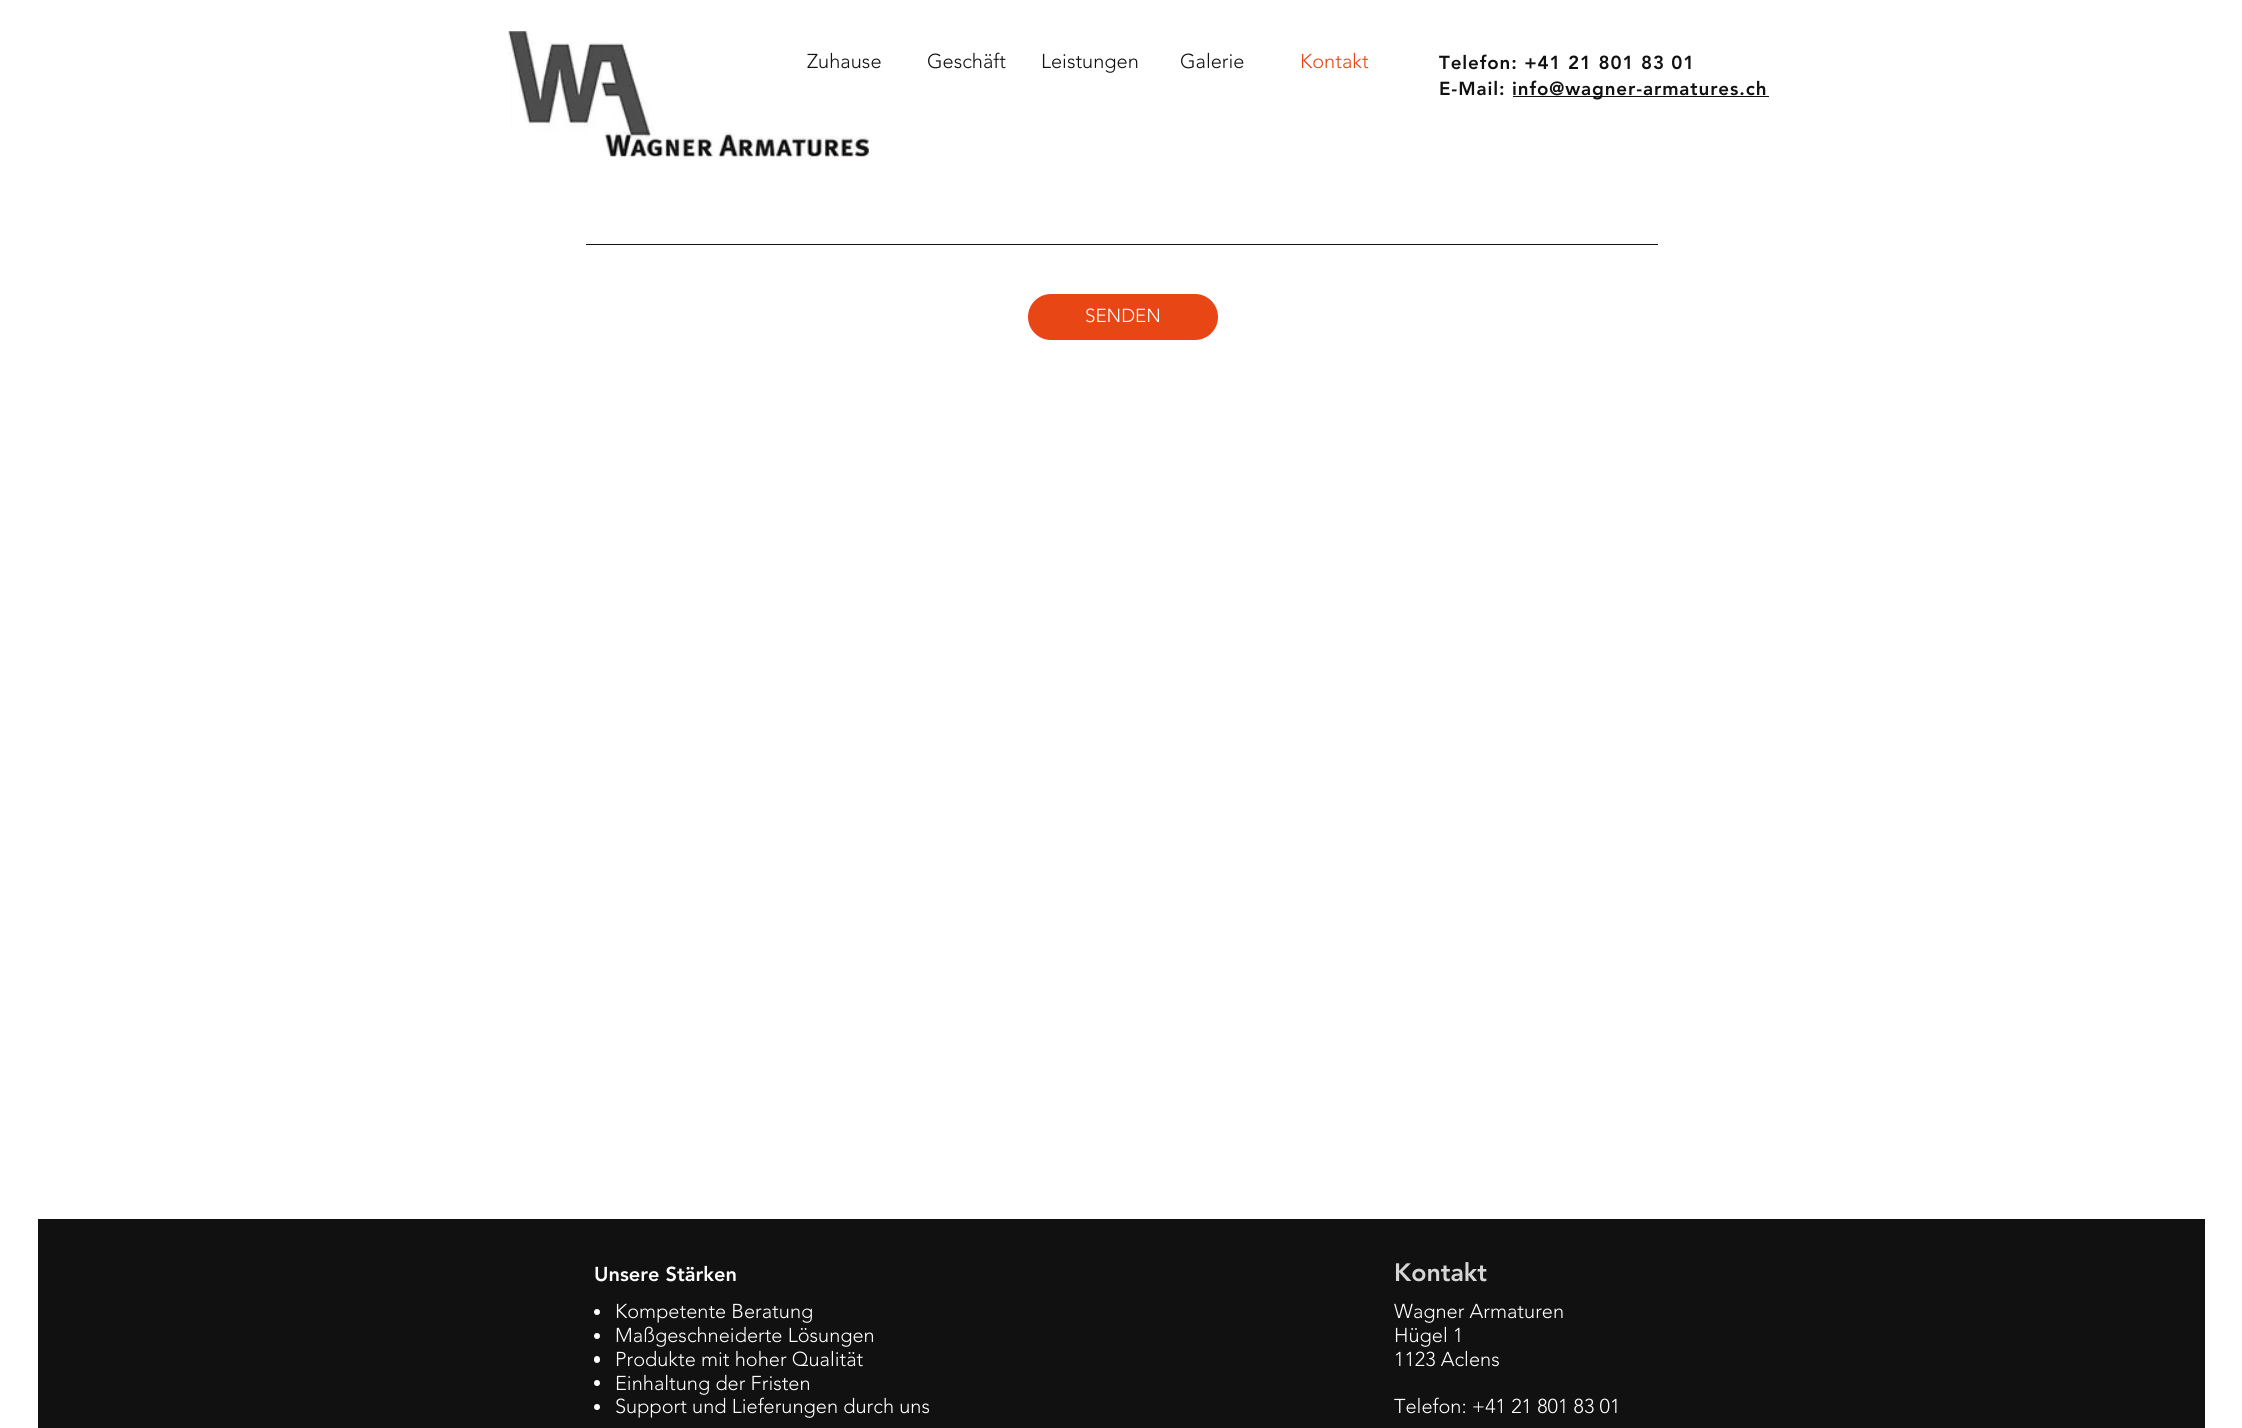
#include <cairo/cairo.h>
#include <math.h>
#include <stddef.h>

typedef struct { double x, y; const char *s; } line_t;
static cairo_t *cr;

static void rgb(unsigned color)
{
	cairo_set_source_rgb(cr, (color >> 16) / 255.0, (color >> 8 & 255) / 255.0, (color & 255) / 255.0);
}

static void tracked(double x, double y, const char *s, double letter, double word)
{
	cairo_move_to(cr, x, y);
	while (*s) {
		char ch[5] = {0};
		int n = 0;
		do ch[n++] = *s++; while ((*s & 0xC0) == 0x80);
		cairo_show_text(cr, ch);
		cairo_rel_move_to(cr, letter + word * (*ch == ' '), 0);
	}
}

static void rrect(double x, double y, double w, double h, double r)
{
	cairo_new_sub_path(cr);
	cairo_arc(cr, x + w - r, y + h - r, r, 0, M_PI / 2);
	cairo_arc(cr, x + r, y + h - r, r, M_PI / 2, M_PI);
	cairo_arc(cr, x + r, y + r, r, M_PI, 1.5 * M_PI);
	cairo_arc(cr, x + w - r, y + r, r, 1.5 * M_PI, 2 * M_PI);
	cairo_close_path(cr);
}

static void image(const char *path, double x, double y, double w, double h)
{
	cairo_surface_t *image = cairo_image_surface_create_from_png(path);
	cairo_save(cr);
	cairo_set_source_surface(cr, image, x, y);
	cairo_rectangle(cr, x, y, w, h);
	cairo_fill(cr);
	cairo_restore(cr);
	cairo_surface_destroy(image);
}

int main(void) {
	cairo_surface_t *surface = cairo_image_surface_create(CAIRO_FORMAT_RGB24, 2242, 1428);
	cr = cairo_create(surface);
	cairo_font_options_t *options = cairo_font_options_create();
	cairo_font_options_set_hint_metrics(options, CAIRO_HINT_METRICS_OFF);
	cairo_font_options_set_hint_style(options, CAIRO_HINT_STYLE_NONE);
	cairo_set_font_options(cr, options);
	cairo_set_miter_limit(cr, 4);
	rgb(0xffffff);
	cairo_paint(cr);
	image("img/1.png", 508, 31, 361, 126);
	rgb(0x111111);
	cairo_rectangle(cr, 1513, 96, 256, 1);
	cairo_fill(cr);
	cairo_rectangle(cr, 586, 244, 1072, 1);
	cairo_fill(cr);
	rgb(0xe94615);
	rrect(1028, 294, 190, 46, 23);
	cairo_fill(cr);
	rgb(0x111111);
	cairo_rectangle(cr, 38, 1219, 2167, 209);
	cairo_fill(cr);
	rgb(0xffffff);
	cairo_arc(cr, 597, 1312, 3, 0, 2 * M_PI);
	cairo_fill(cr);
	cairo_arc(cr, 597, 1336, 3, 0, 2 * M_PI);
	cairo_fill(cr);
	rrect(594, 1356, 6, 7, 3);
	cairo_fill(cr);
	cairo_arc(cr, 597, 1383, 3, 0, 2 * M_PI);
	cairo_fill(cr);
	cairo_arc(cr, 597, 1407, 3, 0, 2 * M_PI);
	cairo_fill(cr);
	cairo_select_font_face(cr, "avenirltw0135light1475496 Light", CAIRO_FONT_SLANT_NORMAL, CAIRO_FONT_WEIGHT_NORMAL);
	cairo_set_font_size(cr, 20);
	rgb(0x111111);
	{
		static const line_t items[] = {
			{807, 68, "Zuhause"},
			{927, 68, "Geschäft"},
			{1041, 68, "Leistungen"},
			{1180, 68, "Galerie"},
		};
		for (size_t i = 0; i < sizeof items / sizeof *items; i++) {
			cairo_move_to(cr, items[i].x, items[i].y);
			cairo_show_text(cr, items[i].s);
		}
	}
	rgb(0xe94615);
	cairo_move_to(cr, 1300, 68);
	cairo_show_text(cr, "Kontakt");
	cairo_select_font_face(cr, "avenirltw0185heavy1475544 Black", CAIRO_FONT_SLANT_NORMAL, CAIRO_FONT_WEIGHT_NORMAL);
	cairo_set_font_size(cr, 18.75);
	rgb(0x111111);
	{
		static const line_t items[] = {
			{1439, 69, "Telefon: +41 21 801 83 01"},
			{1439, 95, "E-Mail:"},
			{1512, 95, "info@wagner-armatures.ch"},
		};
		for (size_t i = 0; i < sizeof items / sizeof *items; i++) {
			tracked(items[i].x, items[i].y, items[i].s, 0.9, 0);
		}
	}
	cairo_select_font_face(cr, "avenirltw0135light1475496 Light", CAIRO_FONT_SLANT_NORMAL, CAIRO_FONT_WEIGHT_NORMAL);
	rgb(0xffffff);
	cairo_move_to(cr, 1085, 322);
	cairo_show_text(cr, "SENDEN");
	cairo_select_font_face(cr, "avenirltw0185heavy1475544 Black", CAIRO_FONT_SLANT_NORMAL, CAIRO_FONT_WEIGHT_NORMAL);
	cairo_set_font_size(cr, 20);
	cairo_move_to(cr, 594, 1281);
	cairo_show_text(cr, "Unsere Stärken");
	cairo_set_font_size(cr, 25);
	rgb(0xd6d6d6);
	cairo_move_to(cr, 1394, 1281);
	cairo_show_text(cr, "Kontakt");
	cairo_select_font_face(cr, "avenirltw0135light1475496 Light", CAIRO_FONT_SLANT_NORMAL, CAIRO_FONT_WEIGHT_NORMAL);
	cairo_set_font_size(cr, 20);
	rgb(0xffffff);
	{
		static const line_t items[] = {
			{615, 1318, "Kompetente Beratung"},
			{615, 1342, "Maßgeschneiderte Lösungen"},
			{615, 1366, "Produkte mit hoher Qualität"},
			{615, 1390, "Einhaltung der Fristen"},
			{615, 1413, "Support und Lieferungen durch uns"},
			{1394, 1318, "Wagner Armaturen"},
			{1394, 1342, "Hügel 1"},
			{1394, 1366, "1123 Aclens"},
			{1394, 1413, "Telefon: +41 21 801 83 01"},
		};
		for (size_t i = 0; i < sizeof items / sizeof *items; i++) {
			cairo_move_to(cr, items[i].x, items[i].y);
			cairo_show_text(cr, items[i].s);
		}
	}
	cairo_surface_write_to_png(surface, "page.png");
	cairo_font_options_destroy(options);
	cairo_destroy(cr);
	cairo_surface_destroy(surface);
	return 0;
}
